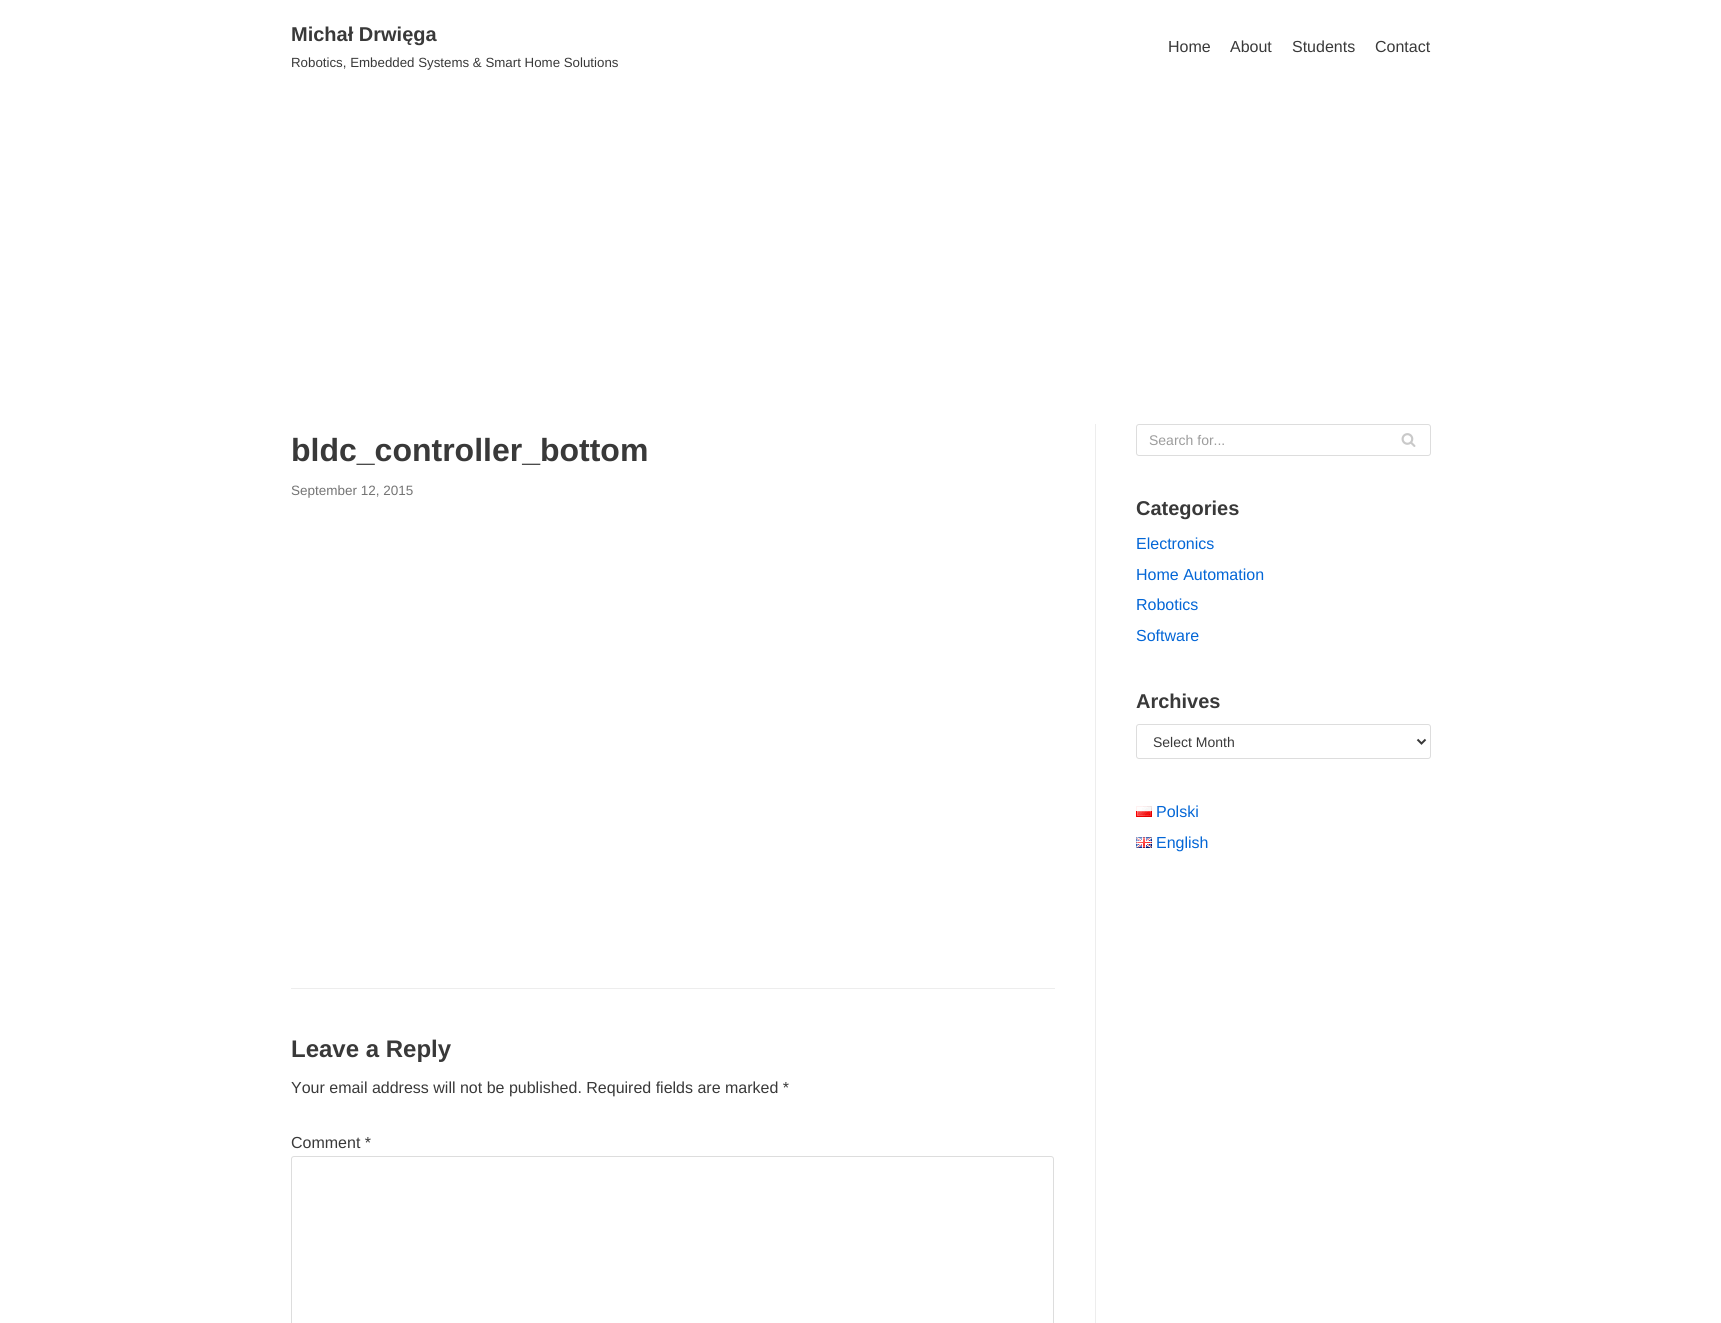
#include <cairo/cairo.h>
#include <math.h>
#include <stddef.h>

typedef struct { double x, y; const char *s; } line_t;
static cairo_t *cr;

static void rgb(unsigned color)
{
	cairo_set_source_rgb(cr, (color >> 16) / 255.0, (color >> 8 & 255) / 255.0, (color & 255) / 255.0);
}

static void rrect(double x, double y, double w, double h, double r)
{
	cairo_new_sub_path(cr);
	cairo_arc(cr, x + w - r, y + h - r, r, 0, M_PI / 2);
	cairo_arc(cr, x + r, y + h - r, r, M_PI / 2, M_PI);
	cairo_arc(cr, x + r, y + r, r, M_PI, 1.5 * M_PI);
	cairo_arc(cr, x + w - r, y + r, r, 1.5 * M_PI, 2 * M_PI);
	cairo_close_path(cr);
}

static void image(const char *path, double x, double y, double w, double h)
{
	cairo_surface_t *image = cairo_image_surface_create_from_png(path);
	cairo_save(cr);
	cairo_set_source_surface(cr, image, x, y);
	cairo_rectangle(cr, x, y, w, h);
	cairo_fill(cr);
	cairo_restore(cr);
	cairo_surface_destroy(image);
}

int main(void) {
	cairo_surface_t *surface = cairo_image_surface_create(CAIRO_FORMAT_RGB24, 1721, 1323);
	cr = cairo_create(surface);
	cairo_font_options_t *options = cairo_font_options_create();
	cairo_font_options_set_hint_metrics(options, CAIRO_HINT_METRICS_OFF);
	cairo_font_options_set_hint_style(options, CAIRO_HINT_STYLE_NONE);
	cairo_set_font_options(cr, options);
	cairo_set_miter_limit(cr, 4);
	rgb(0xffffff);
	cairo_paint(cr);
	rgb(0xededed);
	cairo_rectangle(cr, 291, 988, 764, 1);
	cairo_fill(cr);
	rrect(291.5, 1156.5, 762, 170, 2.5);
	rgb(0xdddddd);
	cairo_set_line_width(cr, 1);
	cairo_stroke(cr);
	rgb(0xededed);
	cairo_rectangle(cr, 1095, 424, 1, 899);
	cairo_fill(cr);
	rrect(1136.5, 424.5, 294, 31, 2.5);
	rgb(0xdddddd);
	cairo_stroke(cr);
	image("img/1.png", 1401, 433, 15, 14);
	rrect(1136.5, 724.5, 294, 34, 2.5);
	cairo_stroke(cr);
	cairo_new_path(cr);
	cairo_move_to(cr, 1417.5, 739.5);
	cairo_line_to(cr, 1421.5, 743.5);
	cairo_line_to(cr, 1425.5, 739.5);
	rgb(0x393939);
	cairo_set_line_width(cr, 2);
	cairo_stroke(cr);
	image("img/2.png", 1136, 806, 16, 11);
	image("img/3.png", 1136, 837, 16, 11);
	cairo_select_font_face(cr, "Liberation Sans", CAIRO_FONT_SLANT_NORMAL, CAIRO_FONT_WEIGHT_BOLD);
	cairo_set_font_size(cr, 20);
	cairo_move_to(cr, 291, 41);
	cairo_show_text(cr, "Michał Drwięga");
	cairo_select_font_face(cr, "Liberation Sans", CAIRO_FONT_SLANT_NORMAL, CAIRO_FONT_WEIGHT_NORMAL);
	cairo_set_font_size(cr, 13.3);
	cairo_move_to(cr, 291, 67);
	cairo_show_text(cr, "Robotics, Embedded Systems & Smart Home Solutions");
	cairo_set_font_size(cr, 16);
	{
		static const line_t items[] = {
			{1168, 52, "Home"},
			{1230, 52, "About"},
			{1292, 52, "Students"},
			{1375, 52, "Contact"},
		};
		for (size_t i = 0; i < sizeof items / sizeof *items; i++) {
			cairo_move_to(cr, items[i].x, items[i].y);
			cairo_show_text(cr, items[i].s);
		}
	}
	cairo_select_font_face(cr, "Liberation Sans", CAIRO_FONT_SLANT_NORMAL, CAIRO_FONT_WEIGHT_BOLD);
	cairo_set_font_size(cr, 32);
	cairo_move_to(cr, 291, 461);
	cairo_show_text(cr, "bldc_controller_bottom");
	cairo_select_font_face(cr, "Liberation Sans", CAIRO_FONT_SLANT_NORMAL, CAIRO_FONT_WEIGHT_NORMAL);
	cairo_set_font_size(cr, 13.5);
	rgb(0x747474);
	cairo_move_to(cr, 291, 495);
	cairo_show_text(cr, "September 12, 2015");
	cairo_select_font_face(cr, "Liberation Sans", CAIRO_FONT_SLANT_NORMAL, CAIRO_FONT_WEIGHT_BOLD);
	cairo_set_font_size(cr, 24);
	rgb(0x393939);
	cairo_move_to(cr, 291, 1057);
	cairo_show_text(cr, "Leave a Reply");
	cairo_select_font_face(cr, "Liberation Sans", CAIRO_FONT_SLANT_NORMAL, CAIRO_FONT_WEIGHT_NORMAL);
	cairo_set_font_size(cr, 16);
	cairo_move_to(cr, 291, 1093);
	cairo_show_text(cr, "Your email address will not be published. Required fields are marked *");
	cairo_move_to(cr, 291, 1148);
	cairo_show_text(cr, "Comment *");
	cairo_set_font_size(cr, 14);
	rgb(0x9c9c9c);
	cairo_move_to(cr, 1149, 445);
	cairo_show_text(cr, "Search for...");
	cairo_select_font_face(cr, "Liberation Sans", CAIRO_FONT_SLANT_NORMAL, CAIRO_FONT_WEIGHT_BOLD);
	cairo_set_font_size(cr, 20);
	rgb(0x393939);
	cairo_move_to(cr, 1136, 515);
	cairo_show_text(cr, "Categories");
	cairo_select_font_face(cr, "Liberation Sans", CAIRO_FONT_SLANT_NORMAL, CAIRO_FONT_WEIGHT_NORMAL);
	cairo_set_font_size(cr, 16);
	rgb(0x0366d6);
	{
		static const line_t items[] = {
			{1136, 549, "Electronics"},
			{1136, 580, "Home Automation"},
			{1136, 610, "Robotics"},
			{1136, 641, "Software"},
		};
		for (size_t i = 0; i < sizeof items / sizeof *items; i++) {
			cairo_move_to(cr, items[i].x, items[i].y);
			cairo_show_text(cr, items[i].s);
		}
	}
	cairo_select_font_face(cr, "Liberation Sans", CAIRO_FONT_SLANT_NORMAL, CAIRO_FONT_WEIGHT_BOLD);
	cairo_set_font_size(cr, 20);
	rgb(0x393939);
	cairo_move_to(cr, 1136, 708);
	cairo_show_text(cr, "Archives");
	cairo_select_font_face(cr, "Liberation Sans", CAIRO_FONT_SLANT_NORMAL, CAIRO_FONT_WEIGHT_NORMAL);
	cairo_set_font_size(cr, 14);
	cairo_move_to(cr, 1153, 747);
	cairo_show_text(cr, "Select Month");
	cairo_set_font_size(cr, 16);
	rgb(0x0366d6);
	cairo_move_to(cr, 1156, 817);
	cairo_show_text(cr, "Polski");
	cairo_move_to(cr, 1156, 848);
	cairo_show_text(cr, "English");
	cairo_surface_write_to_png(surface, "page.png");
	cairo_font_options_destroy(options);
	cairo_destroy(cr);
	cairo_surface_destroy(surface);
	return 0;
}
